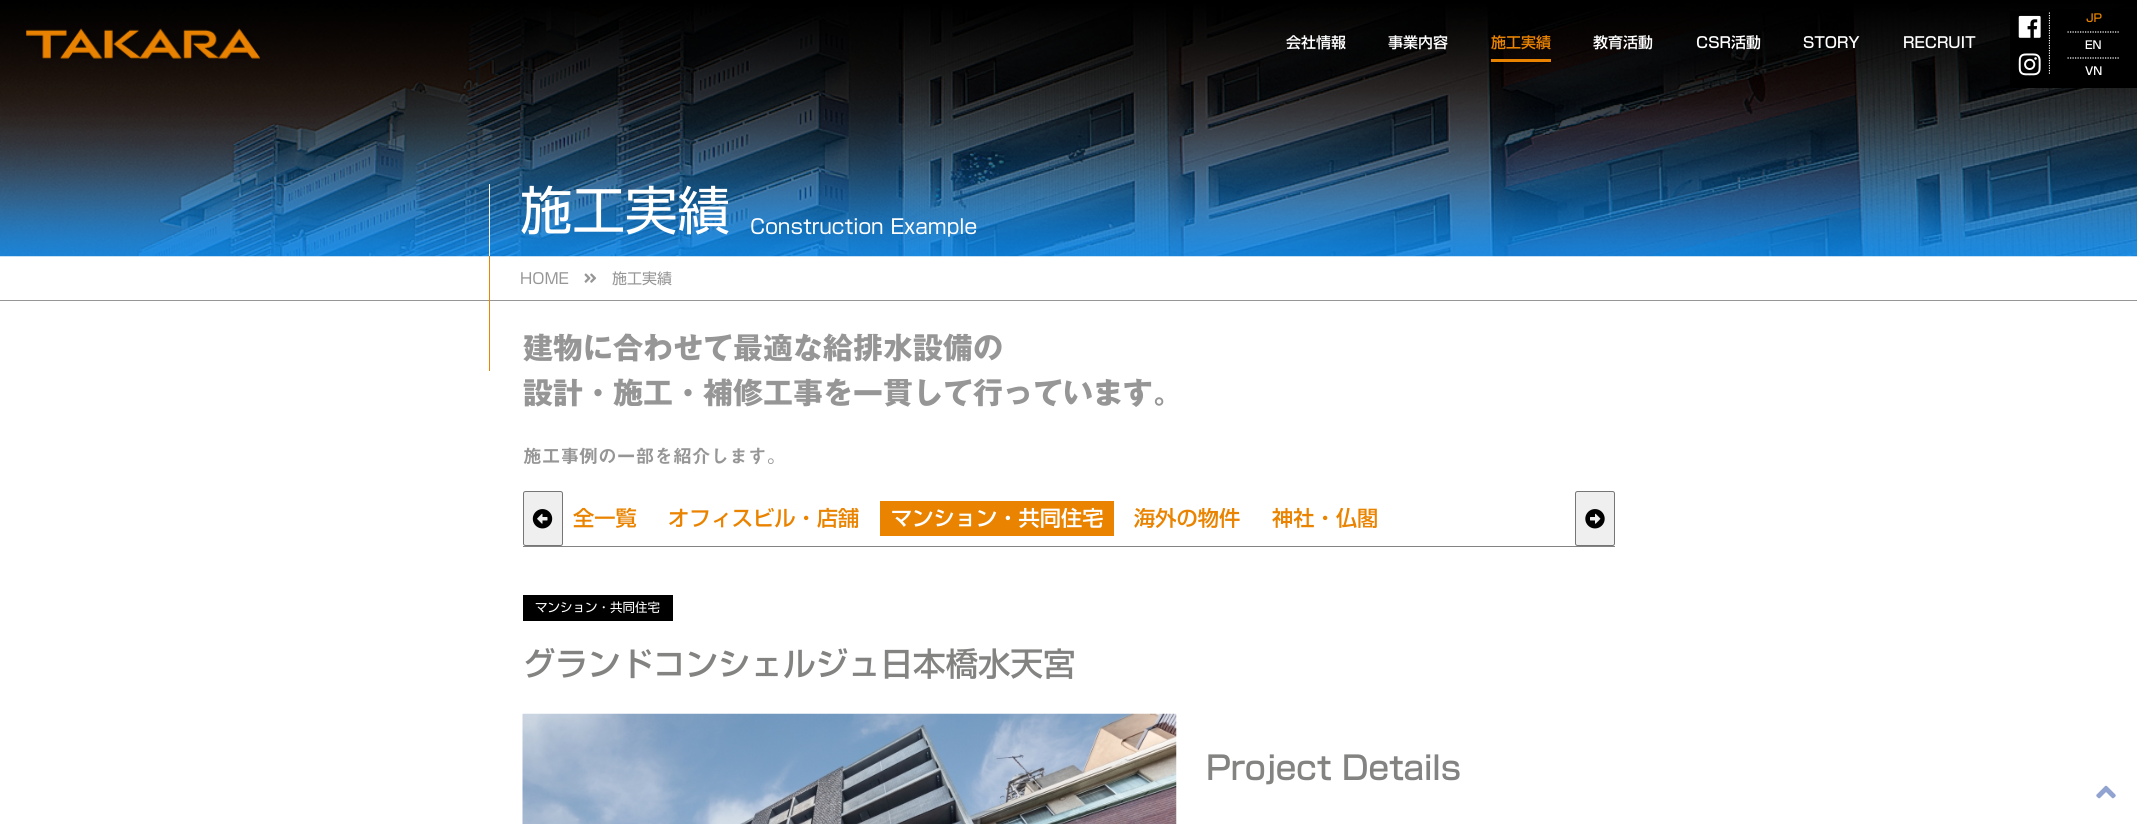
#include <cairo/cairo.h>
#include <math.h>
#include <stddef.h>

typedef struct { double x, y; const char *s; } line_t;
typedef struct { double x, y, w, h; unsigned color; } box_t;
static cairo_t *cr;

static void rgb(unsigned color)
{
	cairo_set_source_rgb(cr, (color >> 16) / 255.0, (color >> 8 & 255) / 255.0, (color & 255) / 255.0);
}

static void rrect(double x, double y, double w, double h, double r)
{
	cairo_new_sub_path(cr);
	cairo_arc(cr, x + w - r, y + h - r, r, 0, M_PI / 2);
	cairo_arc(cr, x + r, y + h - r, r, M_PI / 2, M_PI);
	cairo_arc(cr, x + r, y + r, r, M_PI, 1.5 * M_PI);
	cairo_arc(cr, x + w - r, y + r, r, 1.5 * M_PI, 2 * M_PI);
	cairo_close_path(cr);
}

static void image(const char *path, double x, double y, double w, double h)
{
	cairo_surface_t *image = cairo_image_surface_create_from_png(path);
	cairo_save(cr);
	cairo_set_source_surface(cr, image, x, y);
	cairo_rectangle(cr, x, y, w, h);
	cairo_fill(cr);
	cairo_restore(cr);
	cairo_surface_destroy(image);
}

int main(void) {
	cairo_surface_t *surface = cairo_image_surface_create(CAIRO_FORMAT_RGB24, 2137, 824);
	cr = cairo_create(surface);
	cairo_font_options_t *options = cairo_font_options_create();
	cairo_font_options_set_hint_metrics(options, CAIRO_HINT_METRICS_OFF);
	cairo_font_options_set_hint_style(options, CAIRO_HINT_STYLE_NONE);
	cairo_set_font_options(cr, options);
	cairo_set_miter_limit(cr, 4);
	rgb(0xffffff);
	cairo_paint(cr);
	image("img/4.png", 0, 0, 2137, 257);
	image("img/1.png", 26, 28, 234, 31);
	rgb(0xe98300);
	cairo_rectangle(cr, 1491, 59, 60, 3);
	cairo_fill(cr);
	rgb(0x000000);
	cairo_rectangle(cr, 2010, 11, 40, 77);
	cairo_fill(cr);
	image("img/2.png", 2018, 15, 23, 23);
	image("img/3.png", 2018, 53, 23, 23);
	cairo_new_path(cr);
	cairo_move_to(cr, 2049.5, 12.5);
	cairo_line_to(cr, 2049.5, 75);
	rgb(0xffffff);
	cairo_set_line_width(cr, 1.2);
	cairo_set_dash(cr, (double[]){1.25, 1.25}, 2, 0);
	cairo_stroke(cr);
	rgb(0x000000);
	cairo_rectangle(cr, 2050, 9, 87, 79);
	cairo_fill(cr);
	cairo_new_path(cr);
	cairo_move_to(cr, 2067.5, 32);
	cairo_line_to(cr, 2120, 32);
	rgb(0xffffff);
	cairo_stroke(cr);
	cairo_new_path(cr);
	cairo_move_to(cr, 2067.5, 58);
	cairo_line_to(cr, 2120, 58);
	cairo_stroke(cr);
	{
		static const box_t items[] = {
			{489, 184, 1, 72, 0xffffff},
			{0, 300, 2137, 1, 0x969696},
			{489, 256, 1, 115, 0xe98300},
		};
		for (size_t i = 0; i < sizeof items / sizeof *items; i++) {
			rgb(items[i].color);
			cairo_rectangle(cr, items[i].x, items[i].y, items[i].w, items[i].h);
			cairo_fill(cr);
		}
	}
	image("img/5.png", 584, 273, 13, 10);
	rgb(0x838382);
	cairo_rectangle(cr, 523, 546, 1092, 1);
	cairo_fill(cr);
	rgb(0xefefef);
	rrect(523.5, 491.5, 39, 54, 2);
	cairo_fill_preserve(cr);
	rgb(0x767676);
	cairo_set_line_width(cr, 1);
	cairo_set_dash(cr, NULL, 0, 0);
	cairo_stroke(cr);
	image("img/6.png", 532, 509, 21, 20);
	rgb(0xe98300);
	cairo_rectangle(cr, 880, 501, 234, 35);
	cairo_fill(cr);
	rgb(0xefefef);
	rrect(1575.5, 491.5, 39, 54, 2);
	cairo_fill_preserve(cr);
	rgb(0x767676);
	cairo_stroke(cr);
	image("img/7.png", 1585, 509, 20, 20);
	rgb(0x000000);
	cairo_rectangle(cr, 523, 595, 150, 26);
	cairo_fill(cr);
	image("img/8.png", 522, 713, 655, 111);
	image("img/9.png", 2096, 785, 20, 14);
	cairo_select_font_face(cr, "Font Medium", CAIRO_FONT_SLANT_NORMAL, CAIRO_FONT_WEIGHT_NORMAL);
	cairo_set_font_size(cr, 15);
	rgb(0xffffff);
	cairo_move_to(cr, 1286, 48);
	cairo_show_text(cr, "会社情報");
	cairo_move_to(cr, 1388, 48);
	cairo_show_text(cr, "事業内容");
	rgb(0xe98300);
	cairo_move_to(cr, 1491, 48);
	cairo_show_text(cr, "施工実績");
	rgb(0xffffff);
	{
		static const line_t items[] = {
			{1593, 48, "教育活動"},
			{1696, 48, "CSR活動"},
			{1803, 48, "STORY"},
			{1903, 48, "RECRUIT"},
		};
		for (size_t i = 0; i < sizeof items / sizeof *items; i++) {
			cairo_move_to(cr, items[i].x, items[i].y);
			cairo_show_text(cr, items[i].s);
		}
	}
	cairo_set_font_size(cr, 11);
	rgb(0xe98300);
	cairo_move_to(cr, 2086, 22);
	cairo_show_text(cr, "JP");
	rgb(0xffffff);
	cairo_move_to(cr, 2085, 49);
	cairo_show_text(cr, "EN");
	cairo_move_to(cr, 2085, 75);
	cairo_show_text(cr, "VN");
	cairo_select_font_face(cr, "Font", CAIRO_FONT_SLANT_NORMAL, CAIRO_FONT_WEIGHT_NORMAL);
	cairo_set_font_size(cr, 52.5);
	cairo_move_to(cr, 520, 230);
	cairo_show_text(cr, "施工実績");
	cairo_set_font_size(cr, 20);
	cairo_move_to(cr, 750, 234);
	cairo_show_text(cr, "Construction Example");
	cairo_set_font_size(cr, 15);
	rgb(0x969696);
	cairo_move_to(cr, 520, 284);
	cairo_show_text(cr, "HOME");
	cairo_move_to(cr, 612, 284);
	cairo_show_text(cr, "施工実績");
	cairo_select_font_face(cr, "Font", CAIRO_FONT_SLANT_NORMAL, CAIRO_FONT_WEIGHT_BOLD);
	cairo_set_font_size(cr, 30);
	cairo_move_to(cr, 523, 359);
	cairo_show_text(cr, "建物に合わせて最適な給排水設備の");
	cairo_move_to(cr, 523, 404);
	cairo_show_text(cr, "設計・施工・補修工事を一貫して行っています。");
	cairo_select_font_face(cr, "Font SemiBold", CAIRO_FONT_SLANT_NORMAL, CAIRO_FONT_WEIGHT_NORMAL);
	cairo_set_font_size(cr, 18.75);
	cairo_move_to(cr, 523, 463);
	cairo_show_text(cr, "施工事例の一部を紹介します。");
	cairo_select_font_face(cr, "Font Medium", CAIRO_FONT_SLANT_NORMAL, CAIRO_FONT_WEIGHT_NORMAL);
	cairo_set_font_size(cr, 21.25);
	rgb(0xe98300);
	cairo_move_to(cr, 573, 526);
	cairo_show_text(cr, "全一覧");
	cairo_move_to(cr, 668, 526);
	cairo_show_text(cr, "オフィスビル・店舗");
	rgb(0xffffff);
	cairo_move_to(cr, 891, 526);
	cairo_show_text(cr, "マンション・共同住宅");
	rgb(0xe98300);
	cairo_move_to(cr, 1134, 526);
	cairo_show_text(cr, "海外の物件");
	cairo_move_to(cr, 1272, 526);
	cairo_show_text(cr, "神社・仏閣");
	cairo_select_font_face(cr, "Font", CAIRO_FONT_SLANT_NORMAL, CAIRO_FONT_WEIGHT_NORMAL);
	cairo_set_font_size(cr, 12.5);
	rgb(0xffffff);
	cairo_move_to(cr, 535, 612);
	cairo_show_text(cr, "マンション・共同住宅");
	cairo_select_font_face(cr, "Font Medium", CAIRO_FONT_SLANT_NORMAL, CAIRO_FONT_WEIGHT_NORMAL);
	cairo_set_font_size(cr, 32.5);
	rgb(0x838382);
	cairo_move_to(cr, 523, 676);
	cairo_show_text(cr, "グランドコンシェルジュ日本橋水天宮");
	cairo_move_to(cr, 1206, 780);
	cairo_show_text(cr, "Project Details");
	cairo_surface_write_to_png(surface, "page.png");
	cairo_font_options_destroy(options);
	cairo_destroy(cr);
	cairo_surface_destroy(surface);
	return 0;
}
